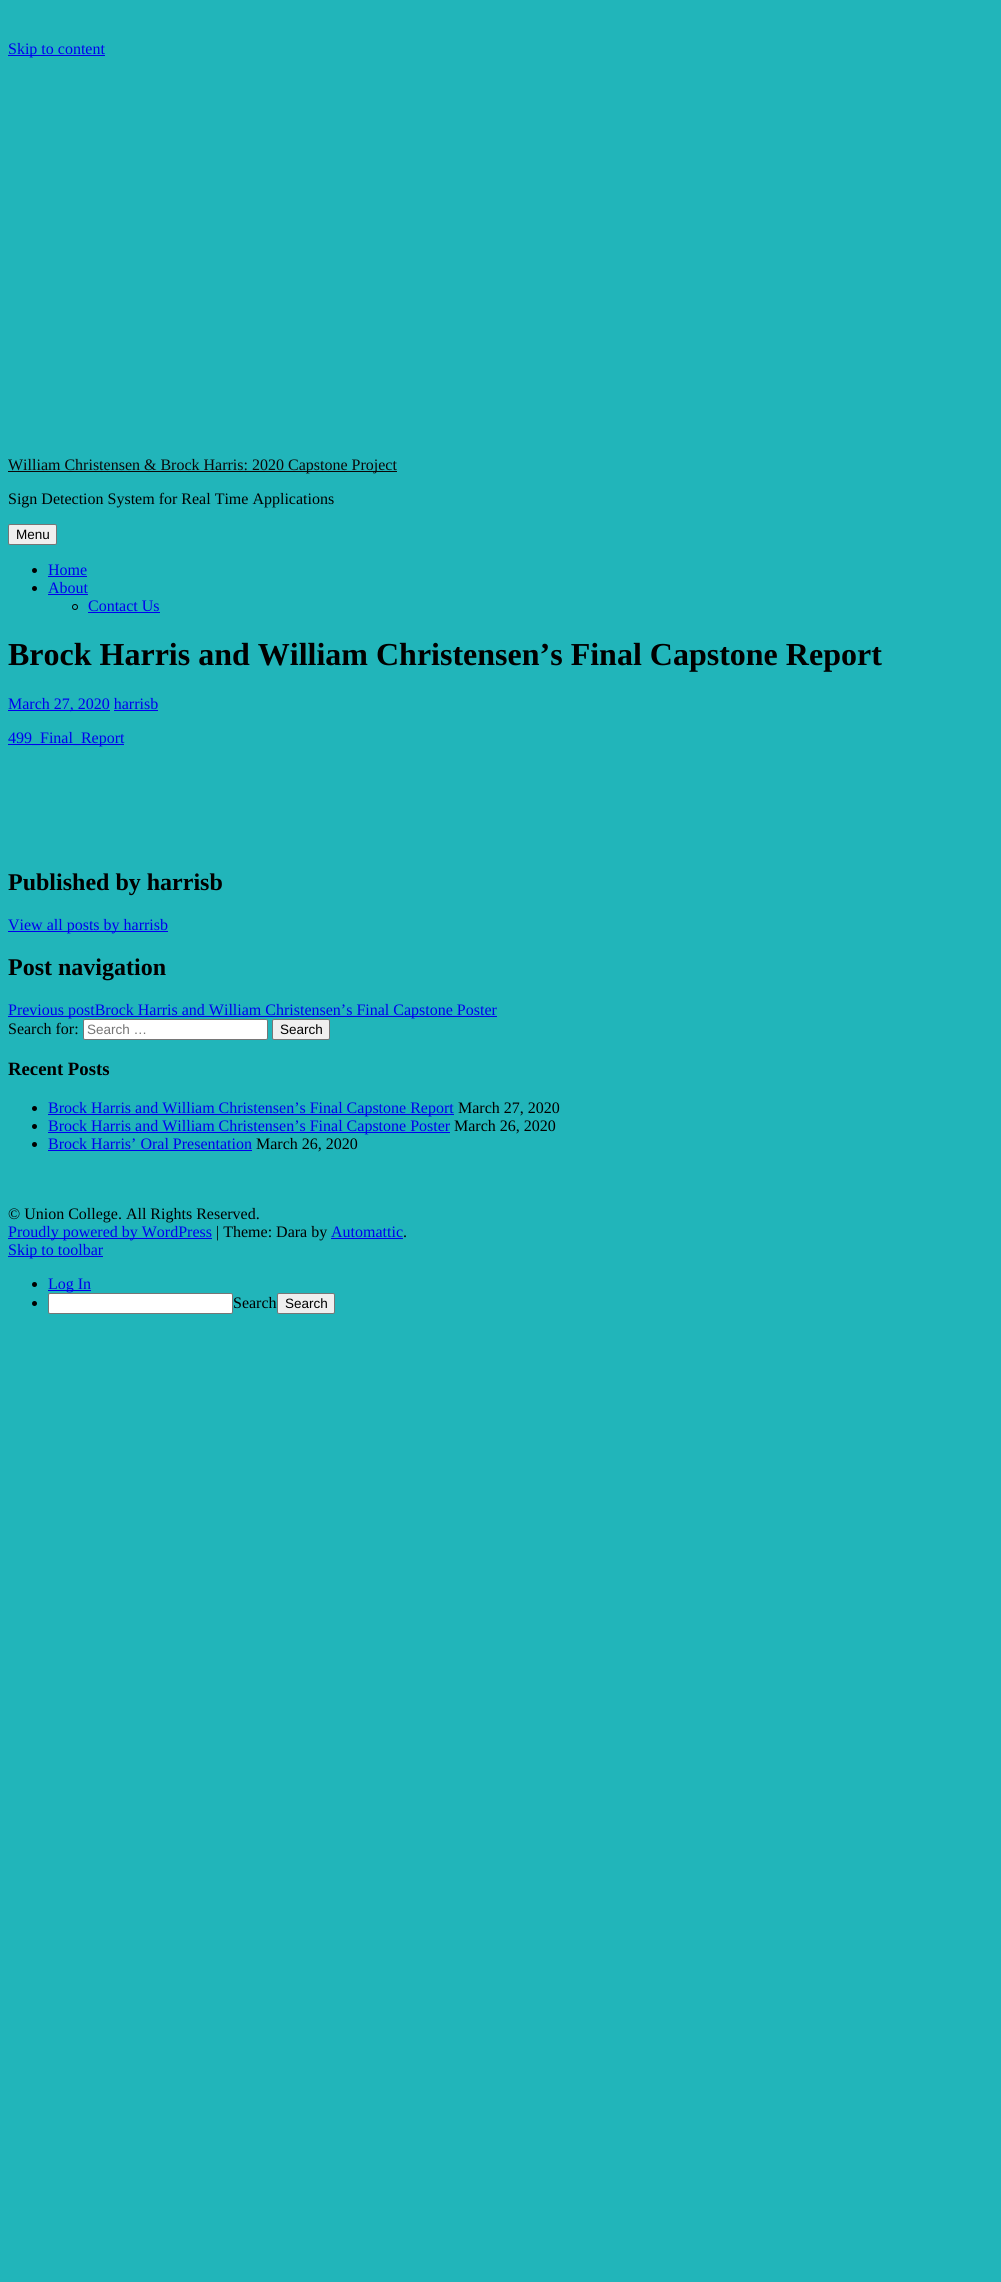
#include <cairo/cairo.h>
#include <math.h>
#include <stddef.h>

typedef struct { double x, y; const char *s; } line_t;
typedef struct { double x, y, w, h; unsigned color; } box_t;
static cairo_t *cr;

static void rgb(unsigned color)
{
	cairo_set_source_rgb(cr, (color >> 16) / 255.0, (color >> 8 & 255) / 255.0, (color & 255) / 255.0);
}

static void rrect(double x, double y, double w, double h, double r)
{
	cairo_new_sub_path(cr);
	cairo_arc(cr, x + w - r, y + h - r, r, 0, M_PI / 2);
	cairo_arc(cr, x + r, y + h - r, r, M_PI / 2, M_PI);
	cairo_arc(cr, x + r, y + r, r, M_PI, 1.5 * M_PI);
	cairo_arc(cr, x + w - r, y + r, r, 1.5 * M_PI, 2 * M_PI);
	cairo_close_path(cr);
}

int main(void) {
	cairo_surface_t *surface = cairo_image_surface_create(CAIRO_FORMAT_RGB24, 1001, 2282);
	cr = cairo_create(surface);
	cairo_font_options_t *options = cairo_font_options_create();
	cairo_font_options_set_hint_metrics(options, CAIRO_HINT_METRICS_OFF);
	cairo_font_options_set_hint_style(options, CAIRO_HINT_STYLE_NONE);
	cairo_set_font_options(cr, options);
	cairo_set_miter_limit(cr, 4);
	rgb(0x21b5ba);
	cairo_paint(cr);
	rgb(0x0000ee);
	cairo_rectangle(cr, 8, 55, 97, 1);
	cairo_fill(cr);
	rgb(0x0a0808);
	cairo_rectangle(cr, 8, 471, 389, 1);
	cairo_fill(cr);
	rgb(0xefefef);
	rrect(8.5, 524.5, 48, 20, 1.5);
	cairo_fill_preserve(cr);
	rgb(0x767676);
	cairo_set_line_width(cr, 1);
	cairo_stroke(cr);
	rgb(0x000000);
	cairo_arc(cr, 34.5, 570.5, 2.5, 0, 2 * M_PI);
	cairo_fill(cr);
	rgb(0x0000ee);
	cairo_rectangle(cr, 48, 576, 39, 1);
	cairo_fill(cr);
	rgb(0x000000);
	cairo_arc(cr, 34.5, 588.5, 2.5, 0, 2 * M_PI);
	cairo_fill(cr);
	rgb(0x0000ee);
	cairo_rectangle(cr, 48, 594, 40, 1);
	cairo_fill(cr);
	cairo_arc(cr, 75, 607, 2.5, 0, 2 * M_PI);
	rgb(0x000000);
	cairo_stroke(cr);
	{
		static const box_t items[] = {
			{88, 612, 72, 1, 0x0000ee},
			{8, 710, 102, 1, 0x0000ee},
			{114, 710, 44, 1, 0x0000ee},
			{8, 744, 116, 1, 0x0000ee},
			{8, 931, 160, 1, 0x0000ee},
			{8, 1016, 489, 1, 0x0000ee},
		};
		for (size_t i = 0; i < sizeof items / sizeof *items; i++) {
			rgb(items[i].color);
			cairo_rectangle(cr, items[i].x, items[i].y, items[i].w, items[i].h);
			cairo_fill(cr);
		}
	}
	rgb(0xffffff);
	rrect(83.5, 1019.5, 184, 20, 1.5);
	cairo_fill_preserve(cr);
	rgb(0x767676);
	cairo_stroke(cr);
	rgb(0xefefef);
	rrect(272.5, 1019.5, 57, 20, 1.5);
	cairo_fill_preserve(cr);
	rgb(0x767676);
	cairo_stroke(cr);
	rgb(0x000000);
	cairo_arc(cr, 34.5, 1108.5, 2.5, 0, 2 * M_PI);
	cairo_fill(cr);
	rgb(0x0000ee);
	cairo_rectangle(cr, 48, 1114, 406, 1);
	cairo_fill(cr);
	rgb(0x000000);
	cairo_arc(cr, 34.5, 1126.5, 2.5, 0, 2 * M_PI);
	cairo_fill(cr);
	rgb(0x0000ee);
	cairo_rectangle(cr, 48, 1132, 402, 1);
	cairo_fill(cr);
	rgb(0x000000);
	cairo_arc(cr, 34.5, 1144.5, 2.5, 0, 2 * M_PI);
	cairo_fill(cr);
	{
		static const box_t items[] = {
			{48, 1150, 204, 1, 0x0000ee},
			{8, 1238, 204, 1, 0x0000ee},
			{331, 1238, 72, 1, 0x0000ee},
			{8, 1256, 95, 1, 0x0000ee},
		};
		for (size_t i = 0; i < sizeof items / sizeof *items; i++) {
			rgb(items[i].color);
			cairo_rectangle(cr, items[i].x, items[i].y, items[i].w, items[i].h);
			cairo_fill(cr);
		}
	}
	rgb(0x000000);
	cairo_arc(cr, 34.5, 1284.5, 2.5, 0, 2 * M_PI);
	cairo_fill(cr);
	rgb(0x0000ee);
	cairo_rectangle(cr, 48, 1290, 43, 1);
	cairo_fill(cr);
	rgb(0x000000);
	cairo_arc(cr, 34.5, 1303.5, 2.5, 0, 2 * M_PI);
	cairo_fill(cr);
	rgb(0xffffff);
	rrect(48.5, 1293.5, 184, 20, 1.5);
	cairo_fill_preserve(cr);
	rgb(0x767676);
	cairo_stroke(cr);
	rgb(0xefefef);
	rrect(277.5, 1293.5, 57, 20, 1.5);
	cairo_fill_preserve(cr);
	rgb(0x767676);
	cairo_stroke(cr);
	cairo_select_font_face(cr, "Liberation Serif", CAIRO_FONT_SLANT_NORMAL, CAIRO_FONT_WEIGHT_NORMAL);
	cairo_set_font_size(cr, 16);
	rgb(0x0000ee);
	cairo_move_to(cr, 8, 54);
	cairo_show_text(cr, "Skip to content");
	rgb(0x0a0808);
	cairo_move_to(cr, 8, 470);
	cairo_show_text(cr, "William Christensen & Brock Harris: 2020 Capstone Project");
	rgb(0x000000);
	cairo_move_to(cr, 8, 504);
	cairo_show_text(cr, "Sign Detection System for Real Time Applications");
	cairo_select_font_face(cr, "Liberation Sans", CAIRO_FONT_SLANT_NORMAL, CAIRO_FONT_WEIGHT_NORMAL);
	cairo_set_font_size(cr, 13.5);
	cairo_move_to(cr, 16, 539);
	cairo_show_text(cr, "Menu");
	cairo_select_font_face(cr, "Liberation Serif", CAIRO_FONT_SLANT_NORMAL, CAIRO_FONT_WEIGHT_NORMAL);
	cairo_set_font_size(cr, 16);
	rgb(0x0000ee);
	{
		static const line_t items[] = {
			{48, 575, "Home"},
			{48, 593, "About"},
			{88, 611, "Contact Us"},
		};
		for (size_t i = 0; i < sizeof items / sizeof *items; i++) {
			cairo_move_to(cr, items[i].x, items[i].y);
			cairo_show_text(cr, items[i].s);
		}
	}
	cairo_select_font_face(cr, "Liberation Serif", CAIRO_FONT_SLANT_NORMAL, CAIRO_FONT_WEIGHT_BOLD);
	cairo_set_font_size(cr, 32);
	rgb(0x000000);
	cairo_move_to(cr, 8, 665);
	cairo_show_text(cr, "Brock Harris and William Christensen’s Final Capstone Report");
	cairo_select_font_face(cr, "Liberation Serif", CAIRO_FONT_SLANT_NORMAL, CAIRO_FONT_WEIGHT_NORMAL);
	cairo_set_font_size(cr, 16);
	rgb(0x0000ee);
	cairo_move_to(cr, 8, 709);
	cairo_show_text(cr, "March 27, 2020 harrisb");
	cairo_move_to(cr, 8, 743);
	cairo_show_text(cr, "499_Final_Report");
	cairo_select_font_face(cr, "Liberation Serif", CAIRO_FONT_SLANT_NORMAL, CAIRO_FONT_WEIGHT_BOLD);
	cairo_set_font_size(cr, 24);
	rgb(0x000000);
	cairo_move_to(cr, 8, 890);
	cairo_show_text(cr, "Published by harrisb");
	cairo_select_font_face(cr, "Liberation Serif", CAIRO_FONT_SLANT_NORMAL, CAIRO_FONT_WEIGHT_NORMAL);
	cairo_set_font_size(cr, 16);
	rgb(0x0000ee);
	cairo_move_to(cr, 8, 930);
	cairo_show_text(cr, "View all posts by harrisb");
	cairo_select_font_face(cr, "Liberation Serif", CAIRO_FONT_SLANT_NORMAL, CAIRO_FONT_WEIGHT_BOLD);
	cairo_set_font_size(cr, 24);
	rgb(0x000000);
	cairo_move_to(cr, 8, 975);
	cairo_show_text(cr, "Post navigation");
	cairo_select_font_face(cr, "Liberation Serif", CAIRO_FONT_SLANT_NORMAL, CAIRO_FONT_WEIGHT_NORMAL);
	cairo_set_font_size(cr, 16);
	rgb(0x0000ee);
	cairo_move_to(cr, 8, 1015);
	cairo_show_text(cr, "Previous postBrock Harris and William Christensen’s Final Capstone Poster");
	rgb(0x000000);
	cairo_move_to(cr, 8, 1034);
	cairo_show_text(cr, "Search for:");
	cairo_select_font_face(cr, "Liberation Sans", CAIRO_FONT_SLANT_NORMAL, CAIRO_FONT_WEIGHT_NORMAL);
	cairo_set_font_size(cr, 13.5);
	rgb(0x757575);
	cairo_move_to(cr, 87, 1034);
	cairo_show_text(cr, "Search …");
	rgb(0x000000);
	cairo_move_to(cr, 280, 1034);
	cairo_show_text(cr, "Search");
	cairo_select_font_face(cr, "Liberation Serif", CAIRO_FONT_SLANT_NORMAL, CAIRO_FONT_WEIGHT_BOLD);
	cairo_set_font_size(cr, 18.75);
	cairo_move_to(cr, 8, 1075);
	cairo_show_text(cr, "Recent Posts");
	cairo_select_font_face(cr, "Liberation Serif", CAIRO_FONT_SLANT_NORMAL, CAIRO_FONT_WEIGHT_NORMAL);
	cairo_set_font_size(cr, 16);
	rgb(0x0000ee);
	cairo_move_to(cr, 48, 1113);
	cairo_show_text(cr, "Brock Harris and William Christensen’s Final Capstone Report");
	rgb(0x000000);
	cairo_move_to(cr, 458, 1113);
	cairo_show_text(cr, "March 27, 2020");
	rgb(0x0000ee);
	cairo_move_to(cr, 48, 1131);
	cairo_show_text(cr, "Brock Harris and William Christensen’s Final Capstone Poster");
	rgb(0x000000);
	cairo_move_to(cr, 454, 1131);
	cairo_show_text(cr, "March 26, 2020");
	rgb(0x0000ee);
	cairo_move_to(cr, 48, 1149);
	cairo_show_text(cr, "Brock Harris’ Oral Presentation");
	rgb(0x000000);
	cairo_move_to(cr, 256, 1149);
	cairo_show_text(cr, "March 26, 2020");
	cairo_move_to(cr, 8, 1219);
	cairo_show_text(cr, "© Union College. All Rights Reserved.");
	rgb(0x0000ee);
	cairo_move_to(cr, 8, 1237);
	cairo_show_text(cr, "Proudly powered by WordPress");
	rgb(0x000000);
	cairo_move_to(cr, 216, 1237);
	cairo_show_text(cr, "| Theme: Dara by");
	rgb(0x0000ee);
	cairo_move_to(cr, 331, 1237);
	cairo_show_text(cr, "Automattic");
	rgb(0x000000);
	cairo_move_to(cr, 403, 1237);
	cairo_show_text(cr, ".");
	rgb(0x0000ee);
	cairo_move_to(cr, 8, 1255);
	cairo_show_text(cr, "Skip to toolbar");
	cairo_move_to(cr, 48, 1289);
	cairo_show_text(cr, "Log In");
	rgb(0x000000);
	cairo_move_to(cr, 233, 1308);
	cairo_show_text(cr, "Search");
	cairo_select_font_face(cr, "Liberation Sans", CAIRO_FONT_SLANT_NORMAL, CAIRO_FONT_WEIGHT_NORMAL);
	cairo_set_font_size(cr, 13.5);
	cairo_move_to(cr, 285, 1308);
	cairo_show_text(cr, "Search");
	cairo_surface_write_to_png(surface, "page.png");
	cairo_font_options_destroy(options);
	cairo_destroy(cr);
	cairo_surface_destroy(surface);
	return 0;
}
